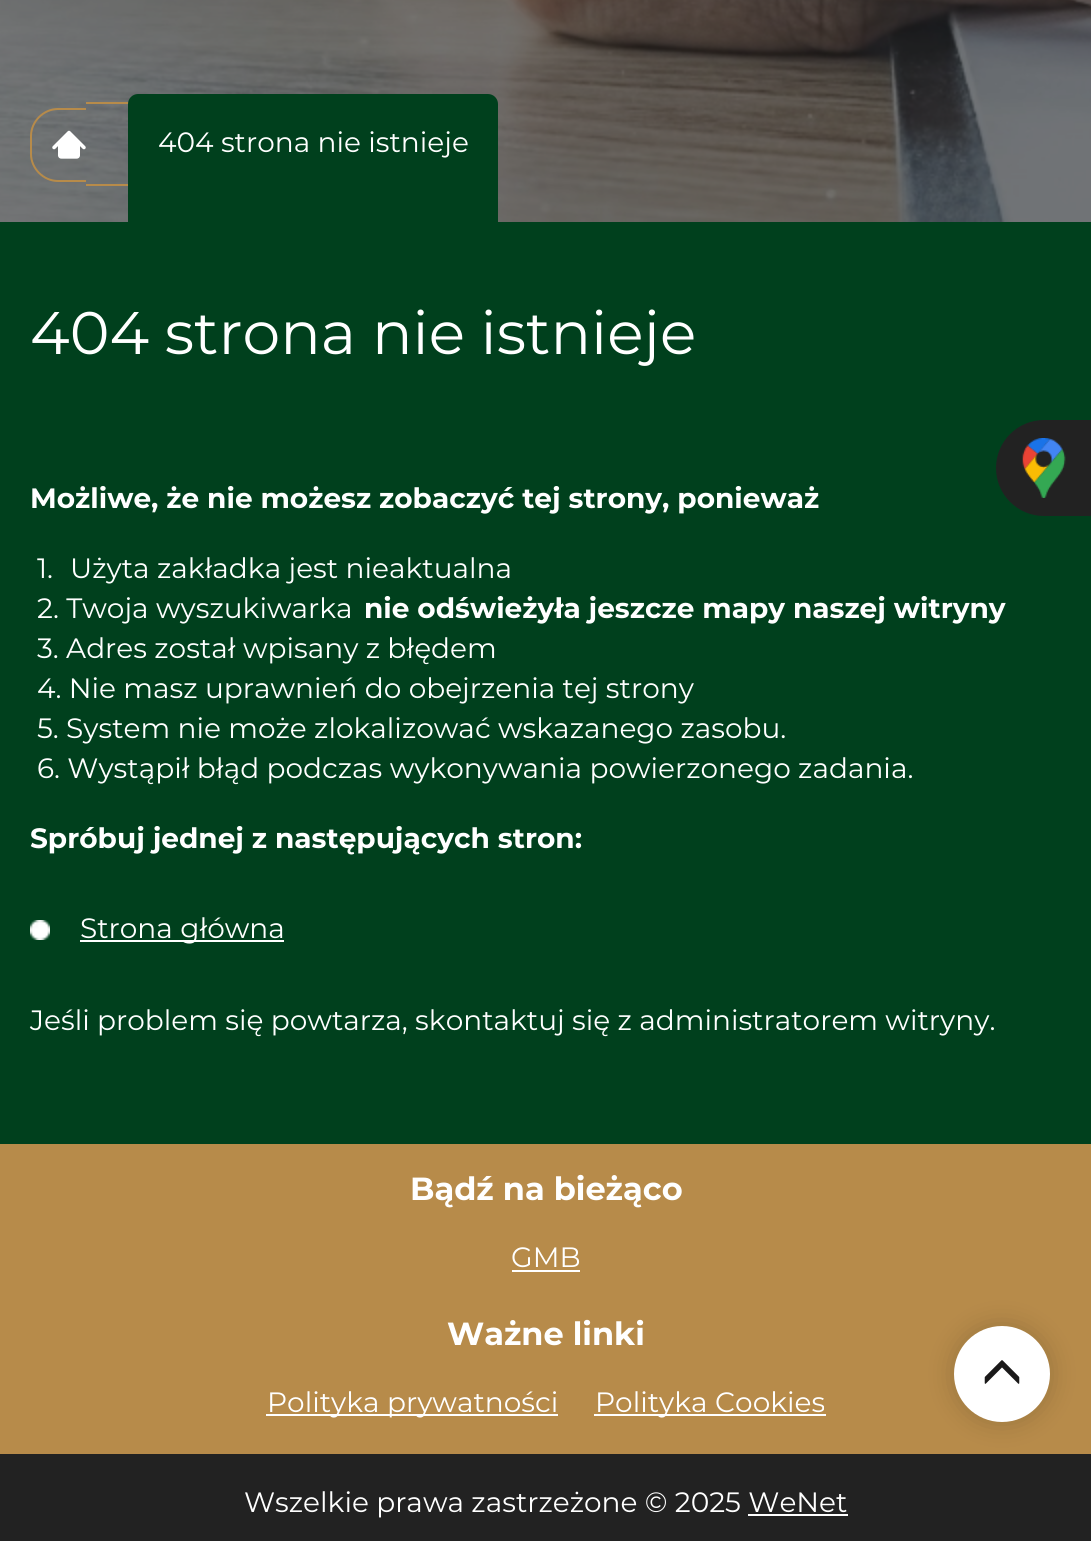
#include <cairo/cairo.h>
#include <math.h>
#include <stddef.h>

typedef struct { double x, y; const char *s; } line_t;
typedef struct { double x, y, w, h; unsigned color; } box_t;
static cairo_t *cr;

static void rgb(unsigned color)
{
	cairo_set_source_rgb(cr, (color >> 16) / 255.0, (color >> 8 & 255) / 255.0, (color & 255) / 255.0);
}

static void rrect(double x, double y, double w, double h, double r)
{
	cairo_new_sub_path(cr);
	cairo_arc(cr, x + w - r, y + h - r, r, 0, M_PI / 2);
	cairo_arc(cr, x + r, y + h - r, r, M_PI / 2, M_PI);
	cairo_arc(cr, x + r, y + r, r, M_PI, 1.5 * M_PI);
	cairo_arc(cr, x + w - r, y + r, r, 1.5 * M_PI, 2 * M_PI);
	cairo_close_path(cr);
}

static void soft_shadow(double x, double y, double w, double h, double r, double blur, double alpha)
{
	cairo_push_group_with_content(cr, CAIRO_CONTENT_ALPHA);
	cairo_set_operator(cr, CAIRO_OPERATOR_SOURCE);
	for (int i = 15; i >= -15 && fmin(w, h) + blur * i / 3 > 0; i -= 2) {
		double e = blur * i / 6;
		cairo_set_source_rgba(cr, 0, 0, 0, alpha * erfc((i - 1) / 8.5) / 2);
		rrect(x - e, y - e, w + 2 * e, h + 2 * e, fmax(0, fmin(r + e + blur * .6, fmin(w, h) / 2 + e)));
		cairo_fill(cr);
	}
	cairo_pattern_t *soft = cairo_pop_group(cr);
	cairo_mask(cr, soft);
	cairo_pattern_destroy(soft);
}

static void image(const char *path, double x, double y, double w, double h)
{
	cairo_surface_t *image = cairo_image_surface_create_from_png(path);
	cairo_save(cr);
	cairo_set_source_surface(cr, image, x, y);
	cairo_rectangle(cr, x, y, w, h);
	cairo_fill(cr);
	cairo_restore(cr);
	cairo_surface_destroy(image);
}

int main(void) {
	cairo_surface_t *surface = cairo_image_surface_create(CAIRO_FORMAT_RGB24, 1091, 1541);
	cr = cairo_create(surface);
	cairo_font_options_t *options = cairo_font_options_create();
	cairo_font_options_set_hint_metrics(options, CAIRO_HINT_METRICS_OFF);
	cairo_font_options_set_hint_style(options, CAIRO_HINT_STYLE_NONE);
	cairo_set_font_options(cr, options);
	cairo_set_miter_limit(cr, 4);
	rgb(0x00401d);
	cairo_paint(cr);
	image("img/1.png", 0, 0, 1091, 222);
	rgb(0xb78b4a);
	cairo_set_fill_rule(cr, CAIRO_FILL_RULE_EVEN_ODD);
	cairo_new_path(cr);
	cairo_move_to(cr, 58, 108);
	cairo_line_to(cr, 86, 108);
	cairo_line_to(cr, 86, 182);
	cairo_line_to(cr, 58, 182);
	cairo_curve_to(cr, 43, 182, 30, 169, 30, 154);
	cairo_line_to(cr, 30, 136);
	cairo_curve_to(cr, 30, 121, 43, 108, 58, 108);
	cairo_close_path(cr);
	cairo_move_to(cr, 58, 110);
	cairo_line_to(cr, 86, 110);
	cairo_line_to(cr, 86, 180);
	cairo_line_to(cr, 58, 180);
	cairo_curve_to(cr, 44, 180, 32, 168, 32, 154);
	cairo_line_to(cr, 32, 136);
	cairo_curve_to(cr, 32, 122, 44, 110, 58, 110);
	cairo_close_path(cr);
	cairo_fill(cr);
	cairo_new_path(cr);
	cairo_move_to(cr, 86, 102);
	cairo_line_to(cr, 136, 102);
	cairo_curve_to(cr, 158, 102, 176, 120, 176, 142);
	cairo_line_to(cr, 176, 146);
	cairo_curve_to(cr, 176, 168, 158, 186, 136, 186);
	cairo_line_to(cr, 86, 186);
	cairo_close_path(cr);
	cairo_move_to(cr, 86, 104);
	cairo_line_to(cr, 136, 104);
	cairo_curve_to(cr, 157, 104, 174, 121, 174, 142);
	cairo_line_to(cr, 174, 146);
	cairo_curve_to(cr, 174, 167, 157, 184, 136, 184);
	cairo_line_to(cr, 86, 184);
	cairo_close_path(cr);
	cairo_fill(cr);
	image("img/2.png", 52, 130, 34, 29);
	rgb(0x00401d);
	cairo_new_path(cr);
	cairo_move_to(cr, 138, 94);
	cairo_line_to(cr, 488, 94);
	cairo_curve_to(cr, 493.5, 94, 498, 98.5, 498, 104);
	cairo_line_to(cr, 498, 224);
	cairo_line_to(cr, 128, 224);
	cairo_line_to(cr, 128, 104);
	cairo_curve_to(cr, 128, 98.5, 132.5, 94, 138, 94);
	cairo_close_path(cr);
	cairo_fill(cr);
	image("img/3.png", 30, 920, 20, 20);
	rgb(0xffffff);
	cairo_rectangle(cr, 80, 940, 204, 2);
	cairo_fill(cr);
	rgb(0x222222);
	cairo_new_path(cr);
	cairo_move_to(cr, 1044, 420);
	cairo_line_to(cr, 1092, 420);
	cairo_line_to(cr, 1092, 516);
	cairo_line_to(cr, 1044, 516);
	cairo_curve_to(cr, 1017.5, 516, 996, 494.5, 996, 468);
	cairo_curve_to(cr, 996, 441.5, 1017.5, 420, 1044, 420);
	cairo_close_path(cr);
	cairo_fill(cr);
	image("img/4.png", 1022, 438, 44, 60);
	{
		static const box_t items[] = {
			{0, 1454, 1091, 87, 0x222222},
			{0, 1144, 1091, 310, 0xb78b4a},
			{512, 1270, 68, 2, 0xffffff},
			{266, 1414, 292, 2, 0xffffff},
			{594, 1414, 232, 2, 0xffffff},
			{748, 1514, 100, 2, 0xffffff},
		};
		for (size_t i = 0; i < sizeof items / sizeof *items; i++) {
			rgb(items[i].color);
			cairo_rectangle(cr, items[i].x, items[i].y, items[i].w, items[i].h);
			cairo_fill(cr);
		}
	}
	rgb(0x000000);
	soft_shadow(952, 1324, 100, 100, 50, 13, 0.15);
	rgb(0xffffff);
	cairo_arc(cr, 1002, 1374, 48, 0, 2 * M_PI);
	cairo_fill(cr);
	image("img/5.png", 984, 1360, 36, 24);
	cairo_select_font_face(cr, "Montserrat", CAIRO_FONT_SLANT_NORMAL, CAIRO_FONT_WEIGHT_NORMAL);
	cairo_set_font_size(cr, 28);
	cairo_move_to(cr, 158, 152);
	cairo_show_text(cr, "404 strona nie istnieje");
	cairo_set_font_size(cr, 60);
	cairo_move_to(cr, 30, 354);
	cairo_show_text(cr, "404 strona nie istnieje");
	cairo_select_font_face(cr, "Montserrat", CAIRO_FONT_SLANT_NORMAL, CAIRO_FONT_WEIGHT_BOLD);
	cairo_set_font_size(cr, 28);
	cairo_move_to(cr, 30, 508);
	cairo_show_text(cr, "Możliwe, że nie możesz zobaczyć tej strony, ponieważ");
	cairo_select_font_face(cr, "Montserrat", CAIRO_FONT_SLANT_NORMAL, CAIRO_FONT_WEIGHT_NORMAL);
	cairo_move_to(cr, 37, 578);
	cairo_show_text(cr, "1.");
	cairo_move_to(cr, 70, 578);
	cairo_show_text(cr, "Użyta zakładka jest nieaktualna");
	cairo_move_to(cr, 37, 618);
	cairo_show_text(cr, "2. Twoja wyszukiwarka");
	cairo_select_font_face(cr, "Montserrat", CAIRO_FONT_SLANT_NORMAL, CAIRO_FONT_WEIGHT_BOLD);
	cairo_move_to(cr, 364, 618);
	cairo_show_text(cr, "nie odświeżyła jeszcze mapy naszej witryny");
	cairo_select_font_face(cr, "Montserrat", CAIRO_FONT_SLANT_NORMAL, CAIRO_FONT_WEIGHT_NORMAL);
	{
		static const line_t items[] = {
			{37, 658, "3. Adres został wpisany z błędem"},
			{37, 698, "4. Nie masz uprawnień do obejrzenia tej strony"},
			{37, 738, "5. System nie może zlokalizować wskazanego zasobu."},
			{37, 778, "6. Wystąpił błąd podczas wykonywania powierzonego zadania."},
		};
		for (size_t i = 0; i < sizeof items / sizeof *items; i++) {
			cairo_move_to(cr, items[i].x, items[i].y);
			cairo_show_text(cr, items[i].s);
		}
	}
	cairo_select_font_face(cr, "Montserrat", CAIRO_FONT_SLANT_NORMAL, CAIRO_FONT_WEIGHT_BOLD);
	cairo_move_to(cr, 30, 848);
	cairo_show_text(cr, "Spróbuj jednej z następujących stron:");
	cairo_select_font_face(cr, "Montserrat", CAIRO_FONT_SLANT_NORMAL, CAIRO_FONT_WEIGHT_NORMAL);
	cairo_move_to(cr, 80, 938);
	cairo_show_text(cr, "Strona główna");
	cairo_move_to(cr, 30, 1030);
	cairo_show_text(cr, "Jeśli problem się powtarza, skontaktuj się z administratorem witryny.");
	cairo_select_font_face(cr, "Montserrat", CAIRO_FONT_SLANT_NORMAL, CAIRO_FONT_WEIGHT_BOLD);
	cairo_set_font_size(cr, 32);
	cairo_move_to(cr, 410, 1200);
	cairo_show_text(cr, "Bądź na bieżąco");
	cairo_select_font_face(cr, "Montserrat", CAIRO_FONT_SLANT_NORMAL, CAIRO_FONT_WEIGHT_NORMAL);
	cairo_set_font_size(cr, 28);
	cairo_move_to(cr, 511, 1267);
	cairo_show_text(cr, "GMB");
	cairo_select_font_face(cr, "Montserrat", CAIRO_FONT_SLANT_NORMAL, CAIRO_FONT_WEIGHT_BOLD);
	cairo_set_font_size(cr, 32);
	cairo_move_to(cr, 447, 1345);
	cairo_show_text(cr, "Ważne linki");
	cairo_select_font_face(cr, "Montserrat", CAIRO_FONT_SLANT_NORMAL, CAIRO_FONT_WEIGHT_NORMAL);
	cairo_set_font_size(cr, 28);
	{
		static const line_t items[] = {
			{267, 1412, "Polityka prywatności"},
			{595, 1412, "Polityka Cookies"},
			{244, 1512, "Wszelkie prawa zastrzeżone © 2025 WeNet"},
		};
		for (size_t i = 0; i < sizeof items / sizeof *items; i++) {
			cairo_move_to(cr, items[i].x, items[i].y);
			cairo_show_text(cr, items[i].s);
		}
	}
	cairo_surface_write_to_png(surface, "page.png");
	cairo_font_options_destroy(options);
	cairo_destroy(cr);
	cairo_surface_destroy(surface);
	return 0;
}
